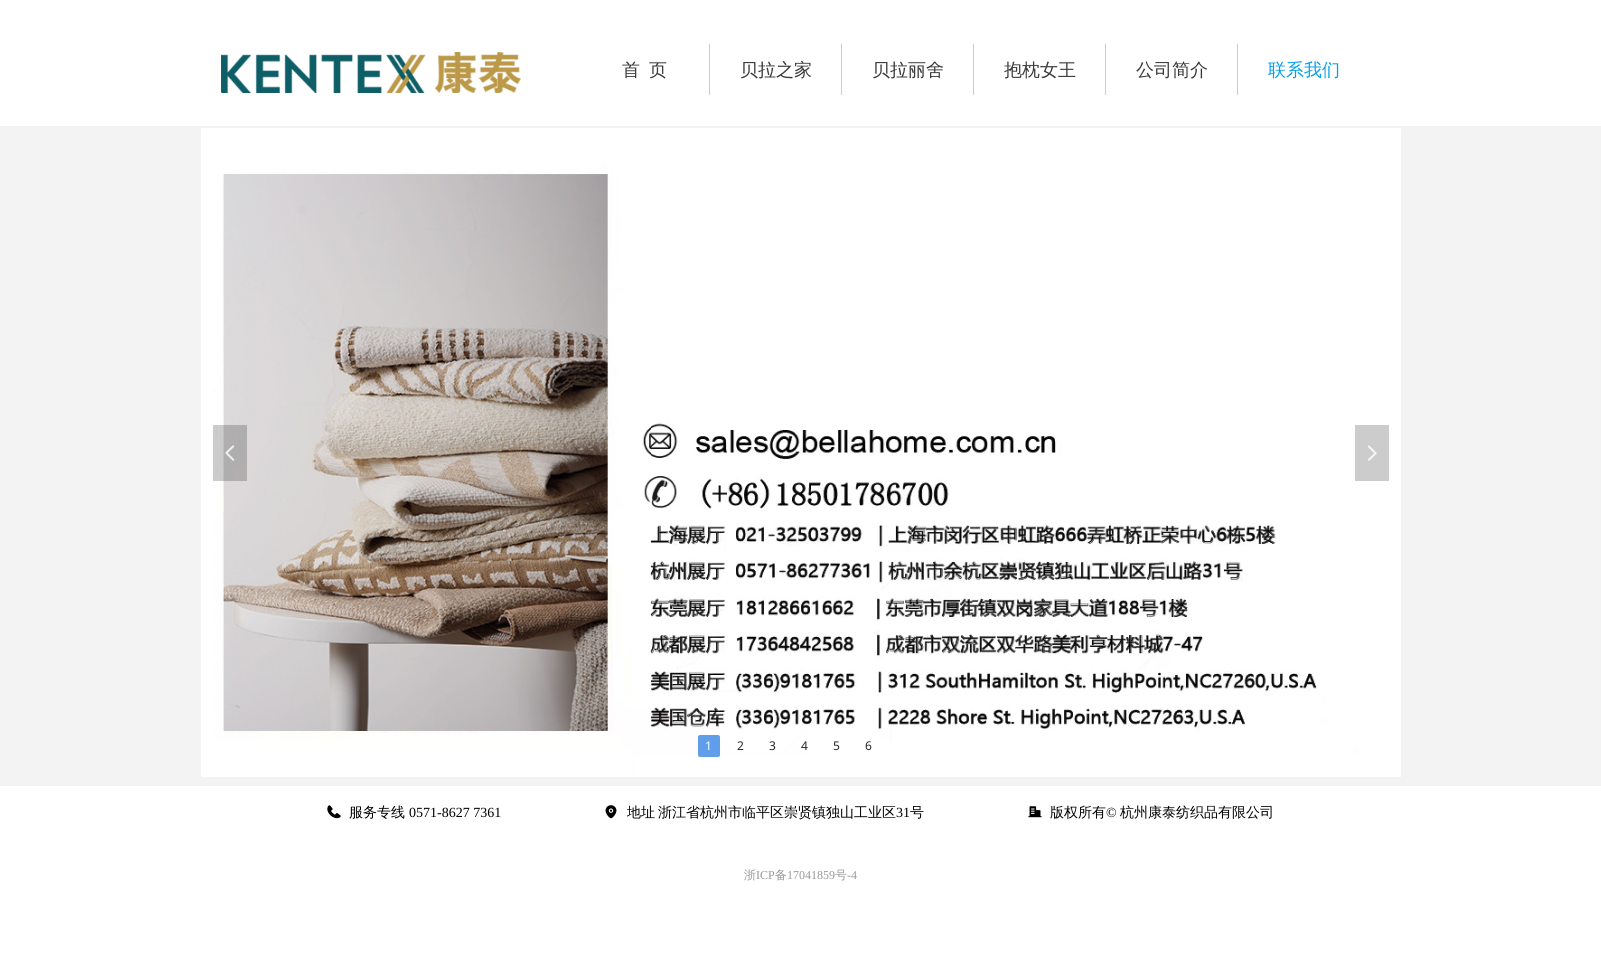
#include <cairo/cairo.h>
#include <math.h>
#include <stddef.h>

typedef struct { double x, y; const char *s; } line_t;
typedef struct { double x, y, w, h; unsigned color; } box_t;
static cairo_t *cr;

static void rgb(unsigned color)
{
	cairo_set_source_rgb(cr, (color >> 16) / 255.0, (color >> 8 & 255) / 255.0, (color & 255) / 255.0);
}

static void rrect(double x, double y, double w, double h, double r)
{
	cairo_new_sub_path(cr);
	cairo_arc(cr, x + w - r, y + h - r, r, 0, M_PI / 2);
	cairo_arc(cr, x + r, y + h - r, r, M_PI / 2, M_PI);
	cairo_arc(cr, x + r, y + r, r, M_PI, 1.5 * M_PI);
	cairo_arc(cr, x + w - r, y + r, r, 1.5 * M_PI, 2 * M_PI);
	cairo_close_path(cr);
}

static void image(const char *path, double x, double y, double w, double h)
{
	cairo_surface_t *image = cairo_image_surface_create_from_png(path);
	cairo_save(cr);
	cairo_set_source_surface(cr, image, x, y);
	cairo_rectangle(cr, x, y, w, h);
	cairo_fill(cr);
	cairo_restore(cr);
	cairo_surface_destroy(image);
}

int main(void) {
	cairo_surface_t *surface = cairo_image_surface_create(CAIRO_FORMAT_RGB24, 1601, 958);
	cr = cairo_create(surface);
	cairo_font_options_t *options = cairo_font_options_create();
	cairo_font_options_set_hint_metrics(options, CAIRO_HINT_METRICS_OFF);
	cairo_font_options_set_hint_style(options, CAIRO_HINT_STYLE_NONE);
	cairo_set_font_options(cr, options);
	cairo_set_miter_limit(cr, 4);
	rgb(0xffffff);
	cairo_paint(cr);
	image("img/1.png", 221, 52, 300, 41);
	{
		static const box_t items[] = {
			{709, 44, 1, 51, 0xcccccc},
			{841, 44, 1, 51, 0xcccccc},
			{973, 44, 1, 51, 0xcccccc},
			{1105, 44, 1, 51, 0xcccccc},
			{1237, 44, 1, 51, 0xcccccc},
			{0, 126, 1601, 660, 0xf3f3f3},
		};
		for (size_t i = 0; i < sizeof items / sizeof *items; i++) {
			rgb(items[i].color);
			cairo_rectangle(cr, items[i].x, items[i].y, items[i].w, items[i].h);
			cairo_fill(cr);
		}
	}
	image("img/2.png", 201, 128, 1200, 649);
	cairo_set_source_rgba(cr, 0, 0, 0, 0.2);
	cairo_rectangle(cr, 213, 425, 34, 56);
	cairo_fill(cr);
	image("img/3.png", 225, 445, 10, 16);
	rgb(0xcccccc);
	cairo_rectangle(cr, 1355, 425, 34, 56);
	cairo_fill(cr);
	image("img/4.png", 1367, 445, 10, 16);
	rgb(0x609ee9);
	rrect(698, 735, 22, 22, 2);
	cairo_fill(cr);
	image("img/5.png", 327, 805, 14, 14);
	image("img/6.png", 605, 805, 12, 14);
	image("img/7.png", 1028, 806, 14, 12);
	cairo_select_font_face(cr, "WenQuanYi Zen Hei Medium", CAIRO_FONT_SLANT_NORMAL, CAIRO_FONT_WEIGHT_NORMAL);
	cairo_set_font_size(cr, 18);
	rgb(0x383838);
	{
		static const line_t items[] = {
			{622, 76, "首"},
			{649, 76, "页"},
			{740, 76, "贝拉之家"},
			{872, 76, "贝拉丽舍"},
			{1004, 76, "抱枕女王"},
			{1136, 76, "公司简介"},
		};
		for (size_t i = 0; i < sizeof items / sizeof *items; i++) {
			cairo_move_to(cr, items[i].x, items[i].y);
			cairo_show_text(cr, items[i].s);
		}
	}
	rgb(0x059fe9);
	cairo_move_to(cr, 1268, 76);
	cairo_show_text(cr, "联系我们");
	cairo_select_font_face(cr, "Noto Sans", CAIRO_FONT_SLANT_NORMAL, CAIRO_FONT_WEIGHT_NORMAL);
	cairo_set_font_size(cr, 12);
	rgb(0xffffff);
	cairo_move_to(cr, 705, 750);
	cairo_show_text(cr, "1");
	rgb(0x262626);
	{
		static const line_t items[] = {
			{737, 750, "2"},
			{769, 750, "3"},
			{801, 750, "4"},
			{833, 750, "5"},
			{865, 750, "6"},
		};
		for (size_t i = 0; i < sizeof items / sizeof *items; i++) {
			cairo_move_to(cr, items[i].x, items[i].y);
			cairo_show_text(cr, items[i].s);
		}
	}
	cairo_select_font_face(cr, "WenQuanYi Zen Hei Medium", CAIRO_FONT_SLANT_NORMAL, CAIRO_FONT_WEIGHT_NORMAL);
	cairo_set_font_size(cr, 14);
	rgb(0x000000);
	cairo_move_to(cr, 349, 817);
	cairo_show_text(cr, "服务专线");
	cairo_select_font_face(cr, "Liberation Serif", CAIRO_FONT_SLANT_NORMAL, CAIRO_FONT_WEIGHT_NORMAL);
	cairo_move_to(cr, 409, 817);
	cairo_show_text(cr, "0571-8627 7361");
	cairo_select_font_face(cr, "WenQuanYi Zen Hei Medium", CAIRO_FONT_SLANT_NORMAL, CAIRO_FONT_WEIGHT_NORMAL);
	cairo_move_to(cr, 627, 817);
	cairo_show_text(cr, "地址");
	cairo_move_to(cr, 658, 817);
	cairo_show_text(cr, "浙江省杭州市临平区崇贤镇独山工业区");
	cairo_select_font_face(cr, "Liberation Serif", CAIRO_FONT_SLANT_NORMAL, CAIRO_FONT_WEIGHT_NORMAL);
	cairo_move_to(cr, 896, 817);
	cairo_show_text(cr, "31");
	cairo_select_font_face(cr, "WenQuanYi Zen Hei Medium", CAIRO_FONT_SLANT_NORMAL, CAIRO_FONT_WEIGHT_NORMAL);
	cairo_move_to(cr, 910, 817);
	cairo_show_text(cr, "号");
	cairo_move_to(cr, 1050, 817);
	cairo_show_text(cr, "版权所有");
	cairo_select_font_face(cr, "Liberation Serif", CAIRO_FONT_SLANT_NORMAL, CAIRO_FONT_WEIGHT_NORMAL);
	cairo_move_to(cr, 1106, 817);
	cairo_show_text(cr, "©");
	cairo_select_font_face(cr, "WenQuanYi Zen Hei Medium", CAIRO_FONT_SLANT_NORMAL, CAIRO_FONT_WEIGHT_NORMAL);
	cairo_move_to(cr, 1120, 817);
	cairo_show_text(cr, "杭州康泰纺织品有限公司");
	cairo_set_font_size(cr, 12);
	rgb(0x989898);
	cairo_move_to(cr, 744, 879);
	cairo_show_text(cr, "浙");
	cairo_select_font_face(cr, "Liberation Serif", CAIRO_FONT_SLANT_NORMAL, CAIRO_FONT_WEIGHT_NORMAL);
	cairo_move_to(cr, 756, 879);
	cairo_show_text(cr, "ICP");
	cairo_select_font_face(cr, "WenQuanYi Zen Hei Medium", CAIRO_FONT_SLANT_NORMAL, CAIRO_FONT_WEIGHT_NORMAL);
	cairo_move_to(cr, 775, 879);
	cairo_show_text(cr, "备");
	cairo_select_font_face(cr, "Liberation Serif", CAIRO_FONT_SLANT_NORMAL, CAIRO_FONT_WEIGHT_NORMAL);
	cairo_move_to(cr, 787, 879);
	cairo_show_text(cr, "17041859");
	cairo_select_font_face(cr, "WenQuanYi Zen Hei Medium", CAIRO_FONT_SLANT_NORMAL, CAIRO_FONT_WEIGHT_NORMAL);
	cairo_move_to(cr, 835, 879);
	cairo_show_text(cr, "号");
	cairo_select_font_face(cr, "Liberation Serif", CAIRO_FONT_SLANT_NORMAL, CAIRO_FONT_WEIGHT_NORMAL);
	cairo_move_to(cr, 847, 879);
	cairo_show_text(cr, "-4");
	cairo_surface_write_to_png(surface, "page.png");
	cairo_font_options_destroy(options);
	cairo_destroy(cr);
	cairo_surface_destroy(surface);
	return 0;
}
